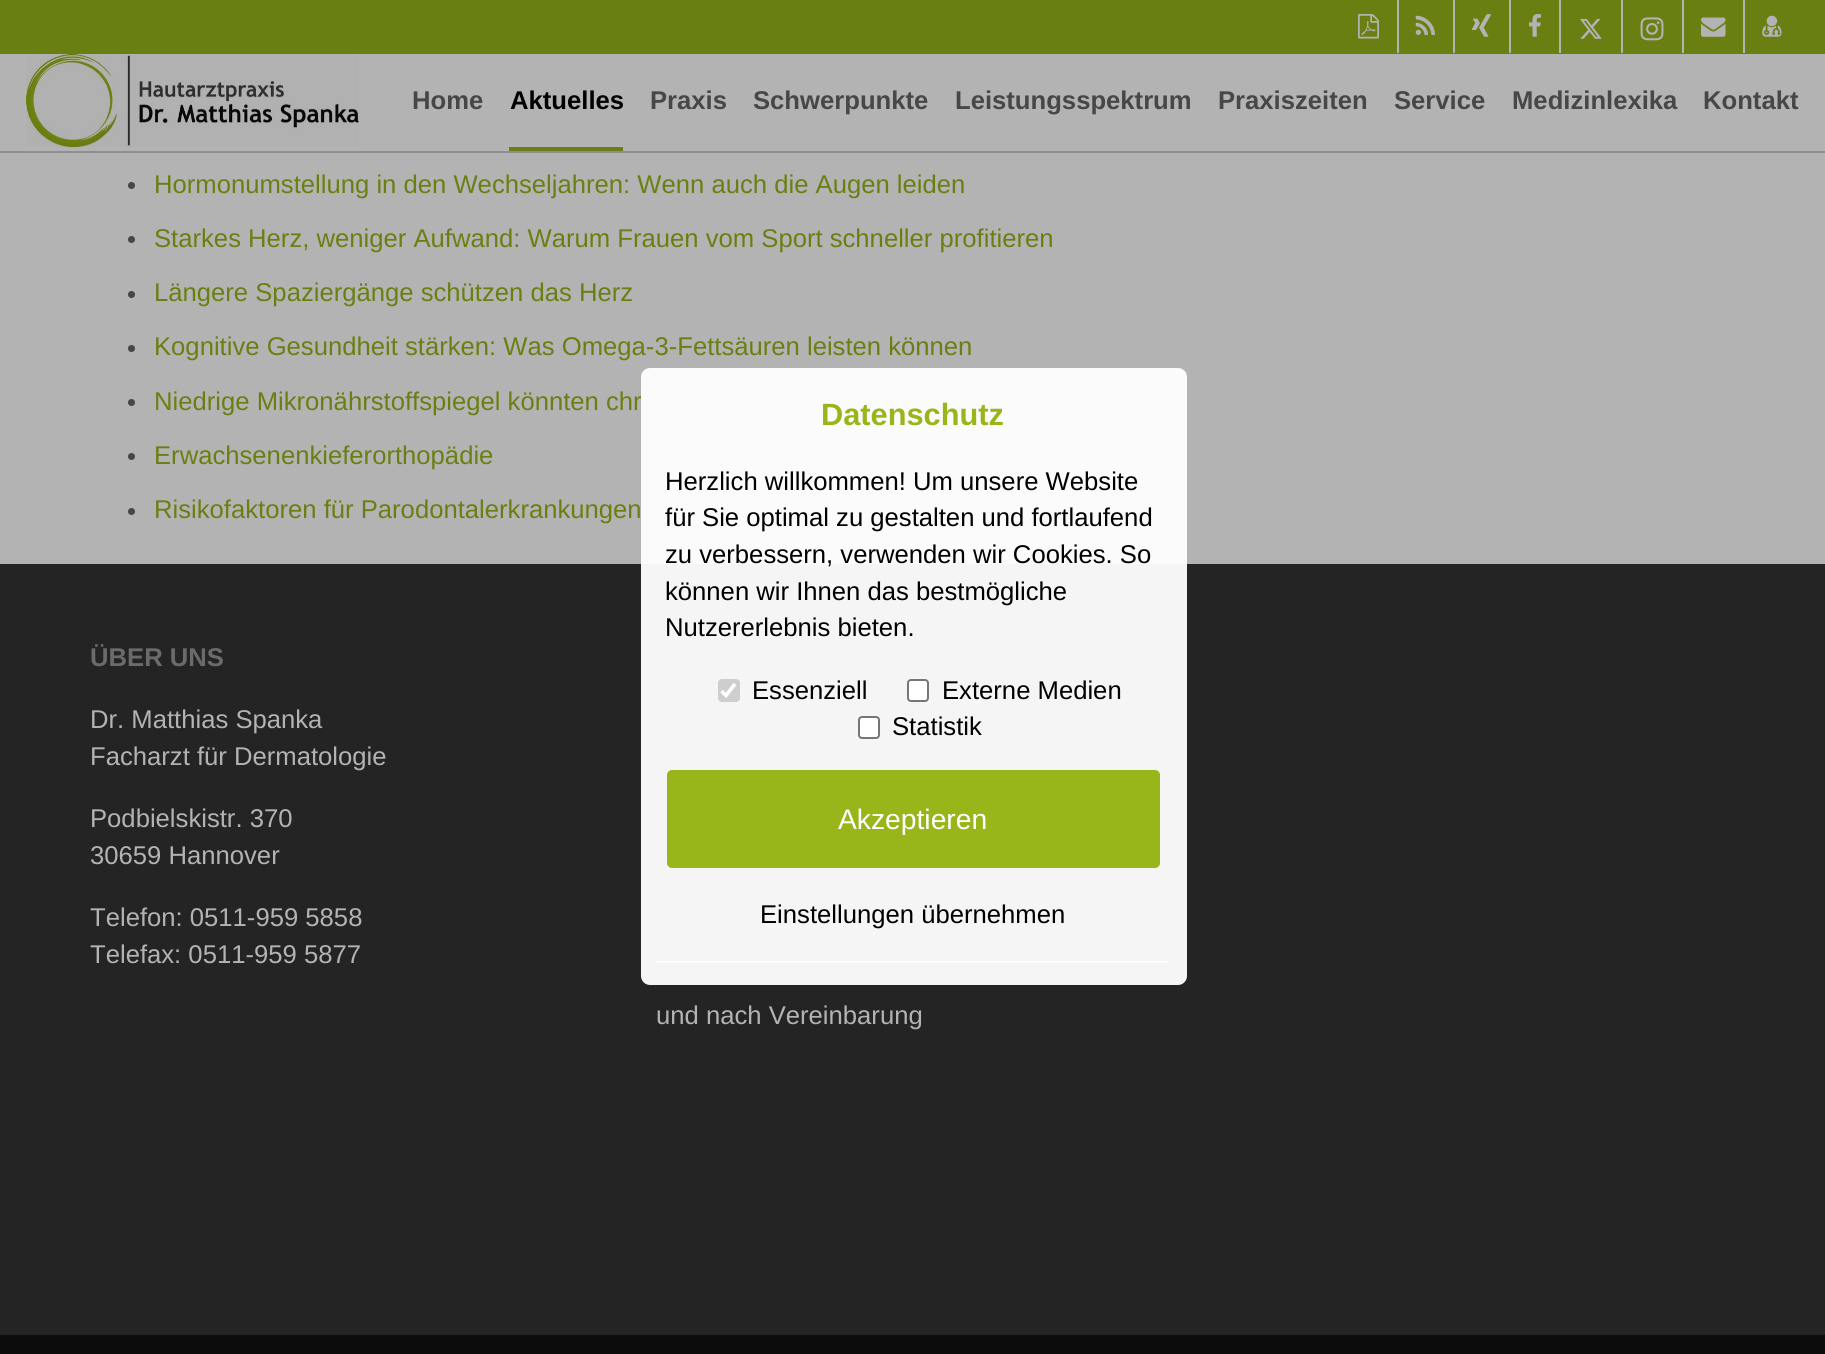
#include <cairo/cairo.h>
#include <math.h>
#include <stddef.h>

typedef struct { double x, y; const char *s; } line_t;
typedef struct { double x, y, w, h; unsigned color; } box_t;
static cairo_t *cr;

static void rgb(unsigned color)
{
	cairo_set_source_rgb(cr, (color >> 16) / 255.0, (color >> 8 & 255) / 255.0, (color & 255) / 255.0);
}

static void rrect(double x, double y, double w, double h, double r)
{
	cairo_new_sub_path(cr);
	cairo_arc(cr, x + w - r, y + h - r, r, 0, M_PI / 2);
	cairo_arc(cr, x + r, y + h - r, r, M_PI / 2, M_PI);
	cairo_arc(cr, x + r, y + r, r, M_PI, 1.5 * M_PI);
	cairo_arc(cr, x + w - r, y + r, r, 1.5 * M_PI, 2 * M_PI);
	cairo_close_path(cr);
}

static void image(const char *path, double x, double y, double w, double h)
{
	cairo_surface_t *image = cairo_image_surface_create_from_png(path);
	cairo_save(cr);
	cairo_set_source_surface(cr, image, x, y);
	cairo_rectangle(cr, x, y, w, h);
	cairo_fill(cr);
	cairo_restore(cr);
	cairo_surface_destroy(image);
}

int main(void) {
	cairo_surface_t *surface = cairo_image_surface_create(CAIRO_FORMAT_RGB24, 1825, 1354);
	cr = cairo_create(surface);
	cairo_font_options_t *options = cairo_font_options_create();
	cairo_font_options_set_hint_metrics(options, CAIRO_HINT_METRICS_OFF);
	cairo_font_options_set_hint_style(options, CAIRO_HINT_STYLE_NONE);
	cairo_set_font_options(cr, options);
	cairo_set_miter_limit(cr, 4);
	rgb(0xb3b3b3);
	cairo_paint(cr);
	{
		static const box_t items[] = {
			{0, 151, 1825, 2, 0x8f8f8f},
			{0, 0, 1825, 54, 0x6a7f12},
			{1397, 0, 2, 53, 0xb3b3b3},
		};
		for (size_t i = 0; i < sizeof items / sizeof *items; i++) {
			rgb(items[i].color);
			cairo_rectangle(cr, items[i].x, items[i].y, items[i].w, items[i].h);
			cairo_fill(cr);
		}
	}
	image("img/1.png", 1358, 14, 21, 25);
	cairo_rectangle(cr, 1453, 0, 2, 53);
	cairo_fill(cr);
	image("img/2.png", 1415, 15, 20, 20);
	cairo_rectangle(cr, 1509, 0, 2, 53);
	cairo_fill(cr);
	image("img/3.png", 1471, 14, 20, 23);
	cairo_rectangle(cr, 1559, 0, 2, 53);
	cairo_fill(cr);
	image("img/4.png", 1529, 14, 12, 23);
	cairo_rectangle(cr, 1621, 0, 2, 53);
	cairo_fill(cr);
	image("img/5.png", 1580, 18, 22, 21);
	cairo_rectangle(cr, 1682, 0, 2, 53);
	cairo_fill(cr);
	image("img/6.png", 1640, 17, 24, 24);
	cairo_rectangle(cr, 1743, 0, 2, 53);
	cairo_fill(cr);
	image("img/7.png", 1701, 17, 25, 20);
	image("img/8.png", 1762, 15, 20, 22);
	image("img/9.png", 26, 54, 333, 94);
	rgb(0x6a7f12);
	cairo_rectangle(cr, 509, 147, 114, 4);
	cairo_fill(cr);
	rgb(0x474747);
	cairo_arc(cr, 131.5, 185.5, 3.5, 0, 2 * M_PI);
	cairo_fill(cr);
	cairo_arc(cr, 131.5, 239.5, 3.5, 0, 2 * M_PI);
	cairo_fill(cr);
	cairo_arc(cr, 131.5, 294.5, 3.5, 0, 2 * M_PI);
	cairo_fill(cr);
	cairo_arc(cr, 131.5, 348.5, 3.5, 0, 2 * M_PI);
	cairo_fill(cr);
	cairo_arc(cr, 131.5, 402.5, 3.5, 0, 2 * M_PI);
	cairo_fill(cr);
	cairo_arc(cr, 131.5, 456.5, 3.5, 0, 2 * M_PI);
	cairo_fill(cr);
	cairo_arc(cr, 131.5, 511.5, 3.5, 0, 2 * M_PI);
	cairo_fill(cr);
	{
		static const box_t items[] = {
			{0, 564, 1825, 771, 0x242424},
			{656, 961, 513, 2, 0xa7a7a7},
			{0, 1335, 1825, 19, 0x0c0c0c},
		};
		for (size_t i = 0; i < sizeof items / sizeof *items; i++) {
			rgb(items[i].color);
			cairo_rectangle(cr, items[i].x, items[i].y, items[i].w, items[i].h);
			cairo_fill(cr);
		}
	}
	cairo_select_font_face(cr, "Liberation Sans", CAIRO_FONT_SLANT_NORMAL, CAIRO_FONT_WEIGHT_BOLD);
	cairo_set_font_size(cr, 25.65);
	rgb(0x474747);
	cairo_move_to(cr, 412, 109);
	cairo_show_text(cr, "Home");
	rgb(0x000000);
	cairo_move_to(cr, 510, 109);
	cairo_show_text(cr, "Aktuelles");
	rgb(0x474747);
	{
		static const line_t items[] = {
			{650, 109, "Praxis"},
			{753, 109, "Schwerpunkte"},
			{955, 109, "Leistungsspektrum"},
			{1218, 109, "Praxiszeiten"},
			{1394, 109, "Service"},
			{1512, 109, "Medizinlexika"},
			{1703, 109, "Kontakt"},
		};
		for (size_t i = 0; i < sizeof items / sizeof *items; i++) {
			cairo_move_to(cr, items[i].x, items[i].y);
			cairo_show_text(cr, items[i].s);
		}
	}
	cairo_select_font_face(cr, "Liberation Sans", CAIRO_FONT_SLANT_NORMAL, CAIRO_FONT_WEIGHT_NORMAL);
	rgb(0x6a7f12);
	{
		static const line_t items[] = {
			{154, 193, "Hormonumstellung in den Wechseljahren: Wenn auch die Augen leiden"},
			{154, 247, "Starkes Herz, weniger Aufwand: Warum Frauen vom Sport schneller profitieren"},
			{154, 301, "Längere Spaziergänge schützen das Herz"},
			{154, 355, "Kognitive Gesundheit stärken: Was Omega-3-Fettsäuren leisten können"},
			{154, 410, "Niedrige Mikronährstoffspiegel könnten chr"},
			{154, 464, "Erwachsenenkieferorthopädie"},
			{154, 518, "Risikofaktoren für Parodontalerkrankungen"},
		};
		for (size_t i = 0; i < sizeof items / sizeof *items; i++) {
			cairo_move_to(cr, items[i].x, items[i].y);
			cairo_show_text(cr, items[i].s);
		}
	}
	cairo_select_font_face(cr, "Liberation Sans", CAIRO_FONT_SLANT_NORMAL, CAIRO_FONT_WEIGHT_BOLD);
	rgb(0x6b6b6b);
	cairo_move_to(cr, 90, 666);
	cairo_show_text(cr, "ÜBER UNS");
	cairo_select_font_face(cr, "Liberation Sans", CAIRO_FONT_SLANT_NORMAL, CAIRO_FONT_WEIGHT_NORMAL);
	rgb(0xb3b3b3);
	{
		static const line_t items[] = {
			{90, 728, "Dr. Matthias Spanka"},
			{90, 765, "Facharzt für Dermatologie"},
			{90, 827, "Podbielskistr. 370"},
			{90, 864, "30659 Hannover"},
			{90, 926, "Telefon: 0511-959 5858"},
			{90, 963, "Telefax: 0511-959 5877"},
			{656, 1024, "und nach Vereinbarung"},
		};
		for (size_t i = 0; i < sizeof items / sizeof *items; i++) {
			cairo_move_to(cr, items[i].x, items[i].y);
			cairo_show_text(cr, items[i].s);
		}
	}
	cairo_set_source_rgba(cr, 1, 1, 1, 0.95);
	rrect(641, 368, 546, 617, 9);
	cairo_fill(cr);
	cairo_select_font_face(cr, "Liberation Sans", CAIRO_FONT_SLANT_NORMAL, CAIRO_FONT_WEIGHT_BOLD);
	cairo_set_font_size(cr, 30.75);
	rgb(0x98b51a);
	cairo_move_to(cr, 821, 425);
	cairo_show_text(cr, "Datenschutz");
	cairo_select_font_face(cr, "Liberation Sans", CAIRO_FONT_SLANT_NORMAL, CAIRO_FONT_WEIGHT_NORMAL);
	cairo_set_font_size(cr, 25.65);
	rgb(0x000000);
	{
		static const line_t items[] = {
			{665, 490, "Herzlich willkommen! Um unsere Website"},
			{665, 526, "für Sie optimal zu gestalten und fortlaufend"},
			{665, 563, "zu verbessern, verwenden wir Cookies. So"},
			{665, 600, "können wir Ihnen das bestmögliche"},
			{665, 636, "Nutzererlebnis bieten."},
		};
		for (size_t i = 0; i < sizeof items / sizeof *items; i++) {
			cairo_move_to(cr, items[i].x, items[i].y);
			cairo_show_text(cr, items[i].s);
		}
	}
	rgb(0xcecece);
	rrect(718, 679, 22, 23, 4);
	cairo_fill(cr);
	cairo_new_path(cr);
	cairo_move_to(cr, 721.5, 691);
	cairo_line_to(cr, 726, 695.5);
	cairo_line_to(cr, 735, 684);
	rgb(0xffffff);
	cairo_set_line_width(cr, 3.6);
	cairo_stroke(cr);
	rgb(0x000000);
	cairo_move_to(cr, 752, 699);
	cairo_show_text(cr, "Essenziell");
	rgb(0xffffff);
	rrect(908, 680, 20, 21, 3);
	cairo_fill_preserve(cr);
	rgb(0x767676);
	cairo_set_line_width(cr, 2);
	cairo_stroke(cr);
	rgb(0x000000);
	cairo_move_to(cr, 942, 699);
	cairo_show_text(cr, "Externe Medien");
	rgb(0xffffff);
	rrect(859, 717, 20, 21, 3);
	cairo_fill_preserve(cr);
	rgb(0x767676);
	cairo_stroke(cr);
	rgb(0x000000);
	cairo_move_to(cr, 892, 735);
	cairo_show_text(cr, "Statistik");
	rgb(0x98b51a);
	rrect(667, 770, 493, 98, 5);
	cairo_fill(cr);
	cairo_set_font_size(cr, 28.25);
	rgb(0xffffff);
	cairo_move_to(cr, 838, 829);
	cairo_show_text(cr, "Akzeptieren");
	cairo_set_font_size(cr, 25.65);
	rgb(0x000000);
	cairo_move_to(cr, 760, 923);
	cairo_show_text(cr, "Einstellungen übernehmen");
	cairo_surface_write_to_png(surface, "page.png");
	cairo_font_options_destroy(options);
	cairo_destroy(cr);
	cairo_surface_destroy(surface);
	return 0;
}
